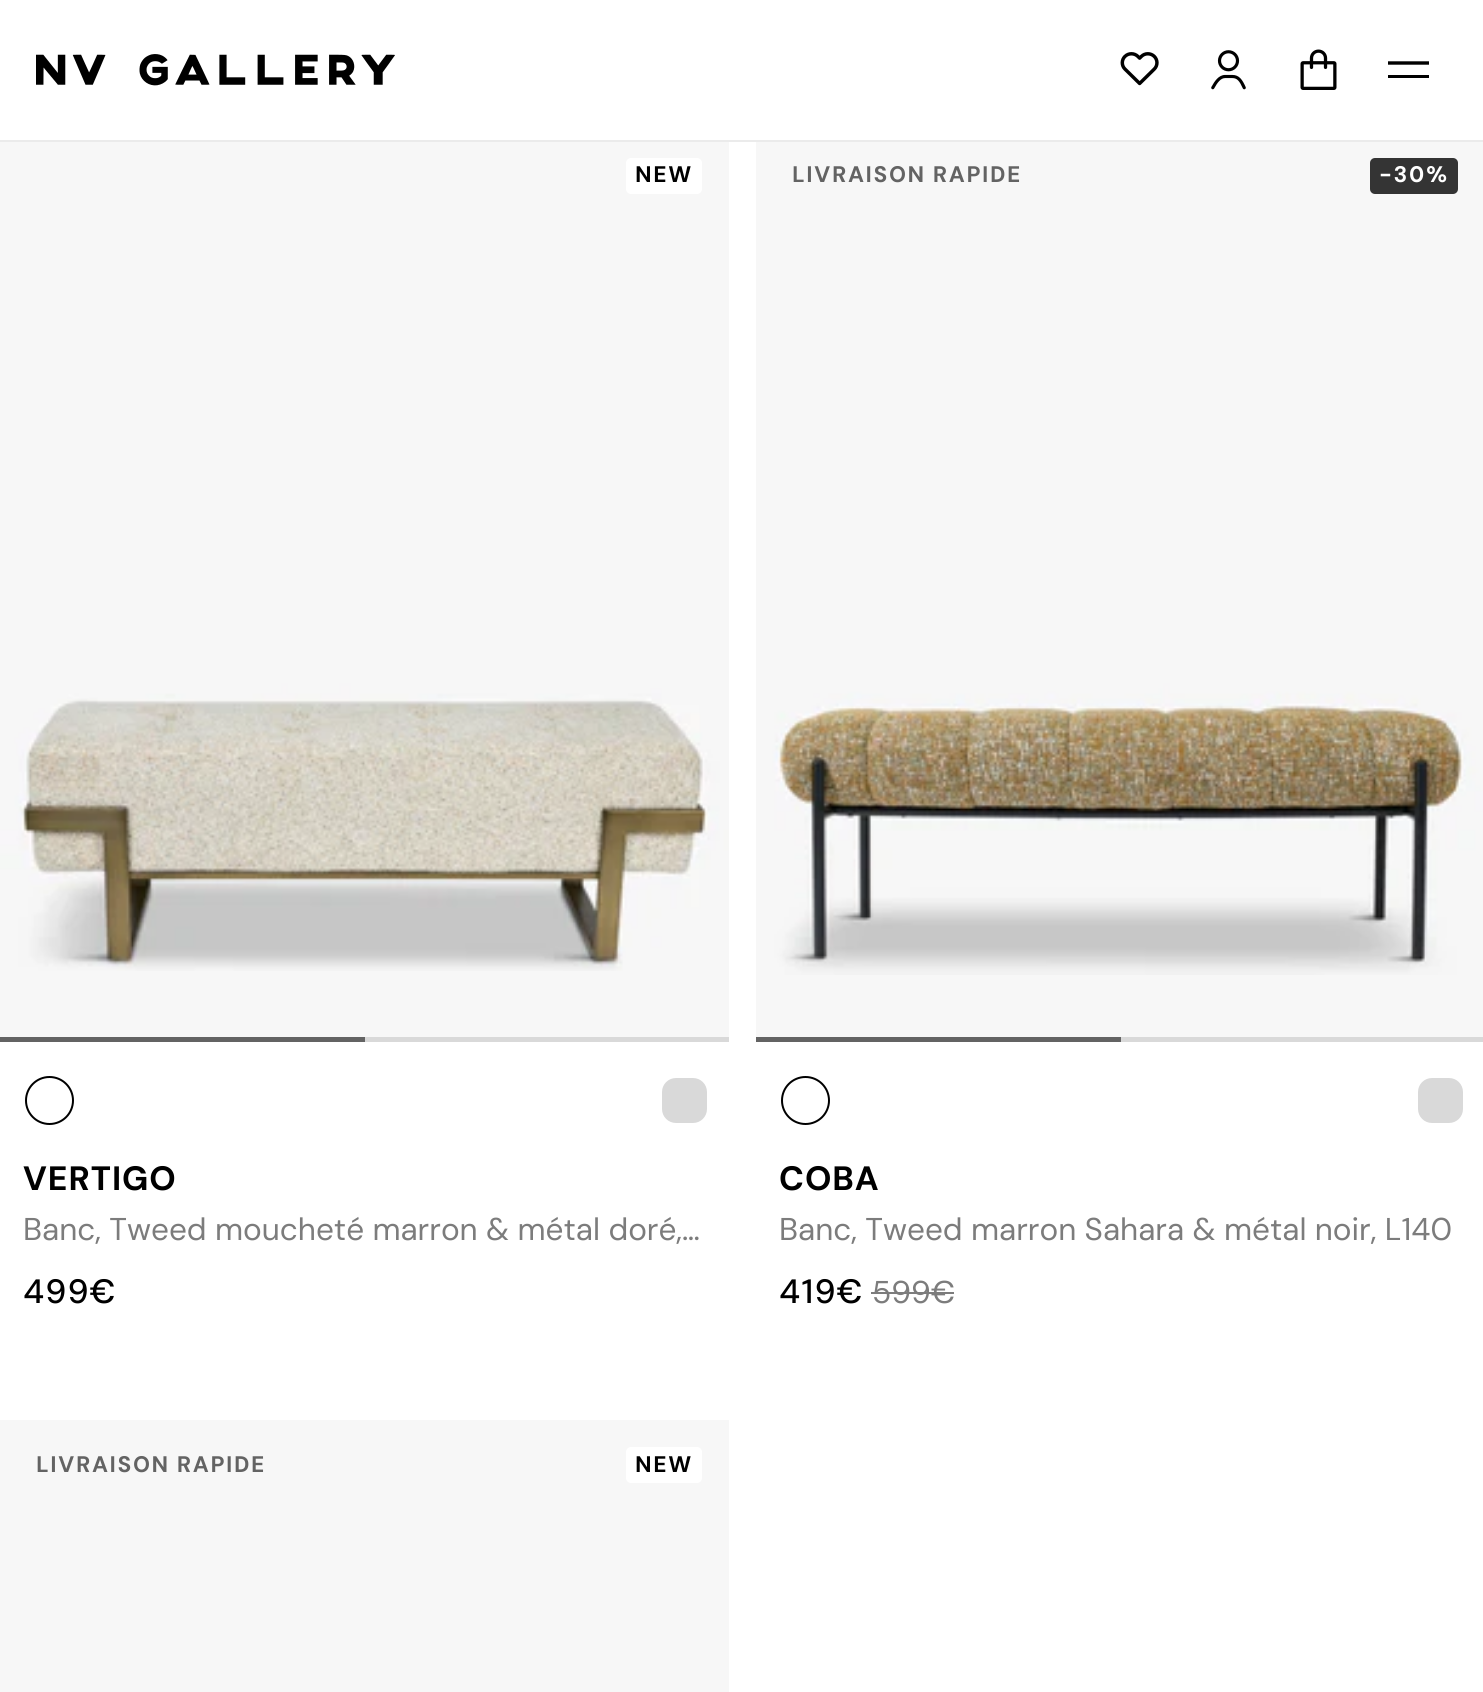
#include <cairo/cairo.h>
#include <math.h>
#include <stddef.h>

static cairo_t *cr;

static void rgb(unsigned color)
{
	cairo_set_source_rgb(cr, (color >> 16) / 255.0, (color >> 8 & 255) / 255.0, (color & 255) / 255.0);
}

static void tracked(double x, double y, const char *s, double letter, double word)
{
	cairo_move_to(cr, x, y);
	while (*s) {
		char ch[5] = {0};
		int n = 0;
		do ch[n++] = *s++; while ((*s & 0xC0) == 0x80);
		cairo_show_text(cr, ch);
		cairo_rel_move_to(cr, letter + word * (*ch == ' '), 0);
	}
}

static void rrect(double x, double y, double w, double h, double r)
{
	cairo_new_sub_path(cr);
	cairo_arc(cr, x + w - r, y + h - r, r, 0, M_PI / 2);
	cairo_arc(cr, x + r, y + h - r, r, M_PI / 2, M_PI);
	cairo_arc(cr, x + r, y + r, r, M_PI, 1.5 * M_PI);
	cairo_arc(cr, x + w - r, y + r, r, 1.5 * M_PI, 2 * M_PI);
	cairo_close_path(cr);
}

static void image(const char *path, double x, double y, double w, double h)
{
	cairo_surface_t *image = cairo_image_surface_create_from_png(path);
	cairo_save(cr);
	cairo_set_source_surface(cr, image, x, y);
	cairo_rectangle(cr, x, y, w, h);
	cairo_fill(cr);
	cairo_restore(cr);
	cairo_surface_destroy(image);
}

int main(void) {
	cairo_surface_t *surface = cairo_image_surface_create(CAIRO_FORMAT_RGB24, 1483, 1692);
	cr = cairo_create(surface);
	cairo_font_options_t *options = cairo_font_options_create();
	cairo_font_options_set_hint_metrics(options, CAIRO_HINT_METRICS_OFF);
	cairo_font_options_set_hint_style(options, CAIRO_HINT_STYLE_NONE);
	cairo_set_font_options(cr, options);
	cairo_set_miter_limit(cr, 4);
	rgb(0xffffff);
	cairo_paint(cr);
	rgb(0xebebeb);
	cairo_rectangle(cr, 0, 140, 1483, 2);
	cairo_fill(cr);
	image("img/1.png", 36, 54, 359, 32);
	image("img/2.png", 1120, 52, 39, 34);
	image("img/3.png", 1211, 50, 35, 40);
	image("img/4.png", 1300, 49, 37, 41);
	cairo_new_path(cr);
	cairo_move_to(cr, 1388, 63);
	cairo_line_to(cr, 1429, 63);
	rgb(0x000000);
	cairo_set_line_width(cr, 3.4);
	cairo_stroke(cr);
	cairo_rectangle(cr, 1388, 75, 41, 3);
	cairo_fill(cr);
	rgb(0xf7f7f7);
	cairo_rectangle(cr, 0, 971, 729, 66);
	cairo_fill(cr);
	image("img/5.png", 0, 142, 729, 829);
	rgb(0xd9d9d9);
	cairo_rectangle(cr, 365, 1037, 364, 5);
	cairo_fill(cr);
	rgb(0x636363);
	cairo_rectangle(cr, 0, 1037, 365, 5);
	cairo_fill(cr);
	rgb(0xffffff);
	rrect(626, 158, 76, 36, 5);
	cairo_fill(cr);
	cairo_arc(cr, 49.5, 1100.5, 23.5, 0, 2 * M_PI);
	rgb(0x000000);
	cairo_set_line_width(cr, 2);
	cairo_stroke(cr);
	rgb(0xd9d9d9);
	rrect(662, 1078, 45, 45, 14);
	cairo_fill(cr);
	rgb(0xf7f7f7);
	cairo_rectangle(cr, 756, 975, 727, 62);
	cairo_fill(cr);
	image("img/6.png", 756, 142, 727, 833);
	rgb(0xd9d9d9);
	cairo_rectangle(cr, 1121, 1037, 362, 5);
	cairo_fill(cr);
	rgb(0x636363);
	cairo_rectangle(cr, 756, 1037, 365, 5);
	cairo_fill(cr);
	rgb(0x343434);
	rrect(1370, 158, 88, 36, 5);
	cairo_fill(cr);
	cairo_arc(cr, 805.5, 1100.5, 23.5, 0, 2 * M_PI);
	rgb(0x000000);
	cairo_stroke(cr);
	rgb(0xd9d9d9);
	rrect(1418, 1078, 45, 45, 14);
	cairo_fill(cr);
	rgb(0x7c7c7c);
	cairo_rectangle(cr, 871, 1292, 83, 2);
	cairo_fill(cr);
	rgb(0xf7f7f7);
	cairo_rectangle(cr, 0, 1420, 729, 272);
	cairo_fill(cr);
	rgb(0xffffff);
	rrect(626, 1447, 76, 36, 5);
	cairo_fill(cr);
	cairo_select_font_face(cr, "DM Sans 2", CAIRO_FONT_SLANT_NORMAL, CAIRO_FONT_WEIGHT_BOLD);
	cairo_set_font_size(cr, 22.5);
	rgb(0x000000);
	tracked(635, 182, "NEW", 1.6, 0);
	cairo_select_font_face(cr, "DM Sans", CAIRO_FONT_SLANT_NORMAL, CAIRO_FONT_WEIGHT_BOLD);
	cairo_set_font_size(cr, 33.75);
	tracked(23, 1190, "VERTIGO", 1, 0);
	cairo_select_font_face(cr, "DM Sans", CAIRO_FONT_SLANT_NORMAL, CAIRO_FONT_WEIGHT_NORMAL);
	cairo_set_font_size(cr, 31.5);
	rgb(0x7c7c7c);
	cairo_move_to(cr, 23, 1240);
	cairo_show_text(cr, "Banc, Tweed moucheté marron & métal doré,…");
	cairo_select_font_face(cr, "DM Sans Medium", CAIRO_FONT_SLANT_NORMAL, CAIRO_FONT_WEIGHT_NORMAL);
	cairo_set_font_size(cr, 33.75);
	rgb(0x000000);
	tracked(23, 1303, "499€", 1, 0);
	cairo_select_font_face(cr, "DM Sans 2", CAIRO_FONT_SLANT_NORMAL, CAIRO_FONT_WEIGHT_BOLD);
	cairo_set_font_size(cr, 22.5);
	rgb(0x636363);
	tracked(792, 182, "LIVRAISON RAPIDE", 1.6, 0);
	rgb(0xffffff);
	tracked(1379, 182, "-30%", 1.6, 0);
	cairo_select_font_face(cr, "DM Sans", CAIRO_FONT_SLANT_NORMAL, CAIRO_FONT_WEIGHT_BOLD);
	cairo_set_font_size(cr, 33.75);
	rgb(0x000000);
	tracked(779, 1190, "COBA", 1, 0);
	cairo_select_font_face(cr, "DM Sans", CAIRO_FONT_SLANT_NORMAL, CAIRO_FONT_WEIGHT_NORMAL);
	cairo_set_font_size(cr, 31.5);
	rgb(0x7c7c7c);
	cairo_move_to(cr, 779, 1240);
	cairo_show_text(cr, "Banc, Tweed marron Sahara & métal noir, L140");
	cairo_select_font_face(cr, "DM Sans Medium", CAIRO_FONT_SLANT_NORMAL, CAIRO_FONT_WEIGHT_NORMAL);
	cairo_set_font_size(cr, 33.75);
	rgb(0x000000);
	tracked(779, 1303, "419€", 1, 0);
	cairo_select_font_face(cr, "DM Sans", CAIRO_FONT_SLANT_NORMAL, CAIRO_FONT_WEIGHT_NORMAL);
	cairo_set_font_size(cr, 31.5);
	rgb(0x7c7c7c);
	cairo_move_to(cr, 872, 1303);
	cairo_show_text(cr, "599€");
	cairo_select_font_face(cr, "DM Sans 2", CAIRO_FONT_SLANT_NORMAL, CAIRO_FONT_WEIGHT_BOLD);
	cairo_set_font_size(cr, 22.5);
	rgb(0x636363);
	tracked(36, 1472, "LIVRAISON RAPIDE", 1.6, 0);
	rgb(0x000000);
	tracked(635, 1472, "NEW", 1.6, 0);
	cairo_surface_write_to_png(surface, "page.png");
	cairo_font_options_destroy(options);
	cairo_destroy(cr);
	cairo_surface_destroy(surface);
	return 0;
}
